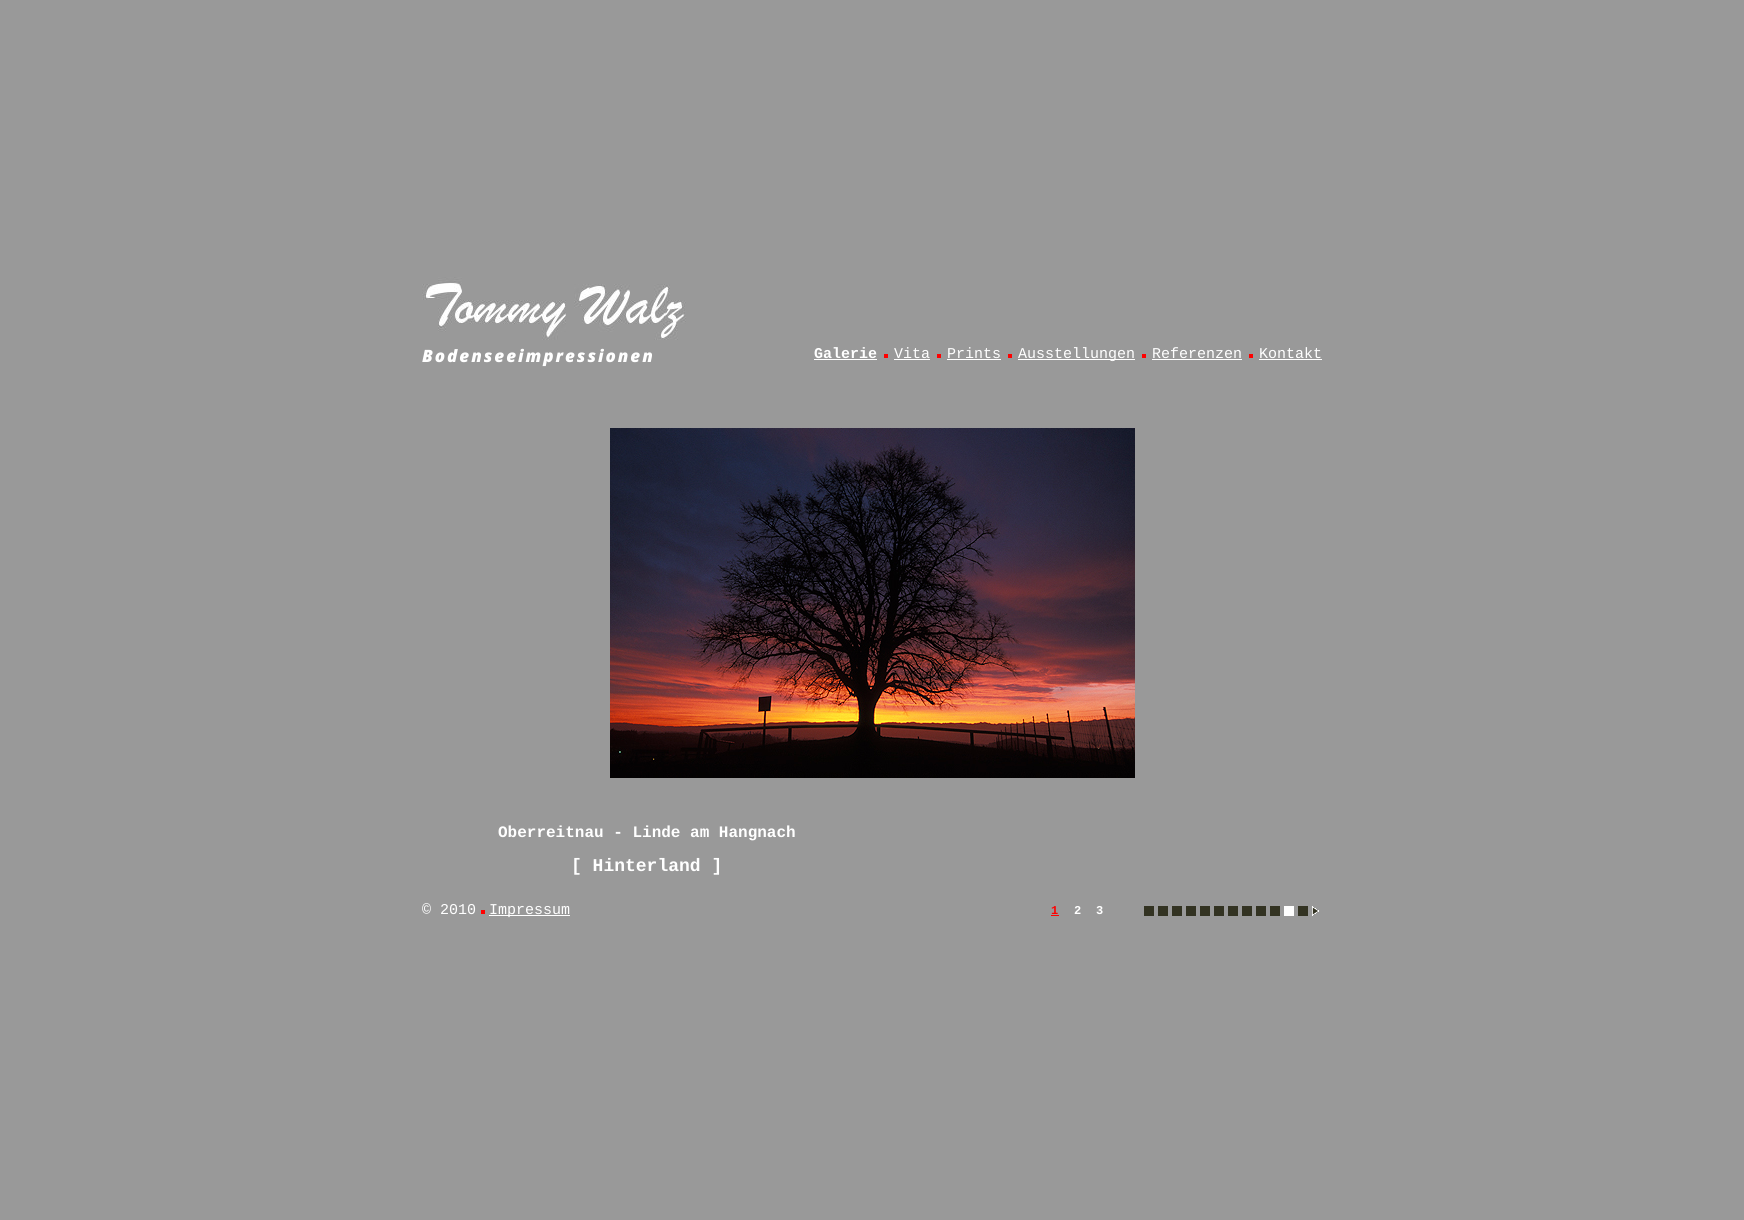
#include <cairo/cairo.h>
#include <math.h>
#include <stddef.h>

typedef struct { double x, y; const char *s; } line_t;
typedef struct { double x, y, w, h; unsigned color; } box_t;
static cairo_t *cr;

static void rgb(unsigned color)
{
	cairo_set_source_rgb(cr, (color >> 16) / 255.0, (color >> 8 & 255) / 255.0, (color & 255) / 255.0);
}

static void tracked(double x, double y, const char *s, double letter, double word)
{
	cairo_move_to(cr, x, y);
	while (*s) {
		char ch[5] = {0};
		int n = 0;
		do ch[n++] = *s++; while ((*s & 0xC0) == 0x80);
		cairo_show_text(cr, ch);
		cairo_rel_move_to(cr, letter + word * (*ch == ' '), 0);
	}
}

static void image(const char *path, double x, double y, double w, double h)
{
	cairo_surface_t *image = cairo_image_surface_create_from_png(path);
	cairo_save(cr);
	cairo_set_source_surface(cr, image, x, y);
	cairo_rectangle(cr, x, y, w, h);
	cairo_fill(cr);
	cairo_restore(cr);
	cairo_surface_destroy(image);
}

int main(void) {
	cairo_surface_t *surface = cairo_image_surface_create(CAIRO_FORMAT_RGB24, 1744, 1220);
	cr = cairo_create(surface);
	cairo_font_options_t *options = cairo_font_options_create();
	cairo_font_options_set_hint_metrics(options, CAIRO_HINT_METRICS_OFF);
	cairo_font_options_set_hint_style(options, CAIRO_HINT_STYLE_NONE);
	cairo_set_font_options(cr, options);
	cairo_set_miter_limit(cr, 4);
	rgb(0x999999);
	cairo_paint(cr);
	image("img/1.png", 422, 277, 264, 63);
	{
		static const box_t items[] = {
			{884, 354, 4, 4, 0xff0000},
			{814, 359, 63, 1, 0xffffff},
			{937, 354, 4, 4, 0xff0000},
			{894, 359, 36, 1, 0xffffff},
			{1008, 354, 4, 4, 0xff0000},
			{947, 359, 54, 1, 0xffffff},
			{1142, 354, 4, 4, 0xff0000},
			{1018, 359, 117, 1, 0xffffff},
			{1249, 354, 4, 4, 0xff0000},
			{1152, 359, 90, 1, 0xffffff},
			{1259, 359, 63, 1, 0xffffff},
		};
		for (size_t i = 0; i < sizeof items / sizeof *items; i++) {
			rgb(items[i].color);
			cairo_rectangle(cr, items[i].x, items[i].y, items[i].w, items[i].h);
			cairo_fill(cr);
		}
	}
	image("img/2.png", 610, 428, 525, 350);
	{
		static const box_t items[] = {
			{481, 910, 4, 4, 0xff0000},
			{489, 915, 81, 1, 0xffffff},
			{1051, 915, 8, 1, 0xff0000},
			{1144, 906, 10, 10, 0x333322},
			{1158, 906, 10, 10, 0x333322},
			{1172, 906, 10, 10, 0x333322},
			{1186, 906, 10, 10, 0x333322},
			{1200, 906, 10, 10, 0x333322},
			{1214, 906, 10, 10, 0x333322},
			{1228, 906, 10, 10, 0x333322},
			{1242, 906, 10, 10, 0x333322},
			{1256, 906, 10, 10, 0x333322},
			{1270, 906, 10, 10, 0x333322},
			{1284, 906, 10, 10, 0xffffff},
			{1298, 906, 10, 10, 0x333322},
		};
		for (size_t i = 0; i < sizeof items / sizeof *items; i++) {
			rgb(items[i].color);
			cairo_rectangle(cr, items[i].x, items[i].y, items[i].w, items[i].h);
			cairo_fill(cr);
		}
	}
	image("img/3.png", 1312, 906, 7, 10);
	cairo_select_font_face(cr, "Noto Sans Black", CAIRO_FONT_SLANT_ITALIC, CAIRO_FONT_WEIGHT_NORMAL);
	cairo_set_font_size(cr, 17);
	rgb(0xffffff);
	tracked(422, 362, "Bodenseeimpressionen", 2, 0);
	cairo_select_font_face(cr, "Liberation Mono", CAIRO_FONT_SLANT_NORMAL, CAIRO_FONT_WEIGHT_BOLD);
	cairo_set_font_size(cr, 15);
	cairo_move_to(cr, 814, 358);
	cairo_show_text(cr, "Galerie");
	cairo_select_font_face(cr, "Liberation Mono", CAIRO_FONT_SLANT_NORMAL, CAIRO_FONT_WEIGHT_NORMAL);
	{
		static const line_t items[] = {
			{894, 358, "Vita"},
			{947, 358, "Prints"},
			{1018, 358, "Ausstellungen"},
			{1152, 358, "Referenzen"},
			{1259, 358, "Kontakt"},
		};
		for (size_t i = 0; i < sizeof items / sizeof *items; i++) {
			cairo_move_to(cr, items[i].x, items[i].y);
			cairo_show_text(cr, items[i].s);
		}
	}
	cairo_select_font_face(cr, "Liberation Mono", CAIRO_FONT_SLANT_NORMAL, CAIRO_FONT_WEIGHT_BOLD);
	cairo_set_font_size(cr, 16);
	cairo_move_to(cr, 498, 837);
	cairo_show_text(cr, "Oberreitnau - Linde am Hangnach");
	cairo_set_font_size(cr, 18);
	cairo_move_to(cr, 571, 871);
	cairo_show_text(cr, "[ Hinterland ]");
	cairo_select_font_face(cr, "Liberation Mono", CAIRO_FONT_SLANT_NORMAL, CAIRO_FONT_WEIGHT_NORMAL);
	cairo_set_font_size(cr, 15);
	cairo_move_to(cr, 422, 914);
	cairo_show_text(cr, "© 2010");
	cairo_move_to(cr, 489, 914);
	cairo_show_text(cr, "Impressum");
	cairo_select_font_face(cr, "Liberation Mono", CAIRO_FONT_SLANT_NORMAL, CAIRO_FONT_WEIGHT_BOLD);
	cairo_set_font_size(cr, 12);
	rgb(0xff0000);
	cairo_move_to(cr, 1051, 914);
	cairo_show_text(cr, "1");
	rgb(0xffffff);
	cairo_move_to(cr, 1074, 914);
	cairo_show_text(cr, "2");
	cairo_move_to(cr, 1096, 914);
	cairo_show_text(cr, "3");
	cairo_surface_write_to_png(surface, "page.png");
	cairo_font_options_destroy(options);
	cairo_destroy(cr);
	cairo_surface_destroy(surface);
	return 0;
}
